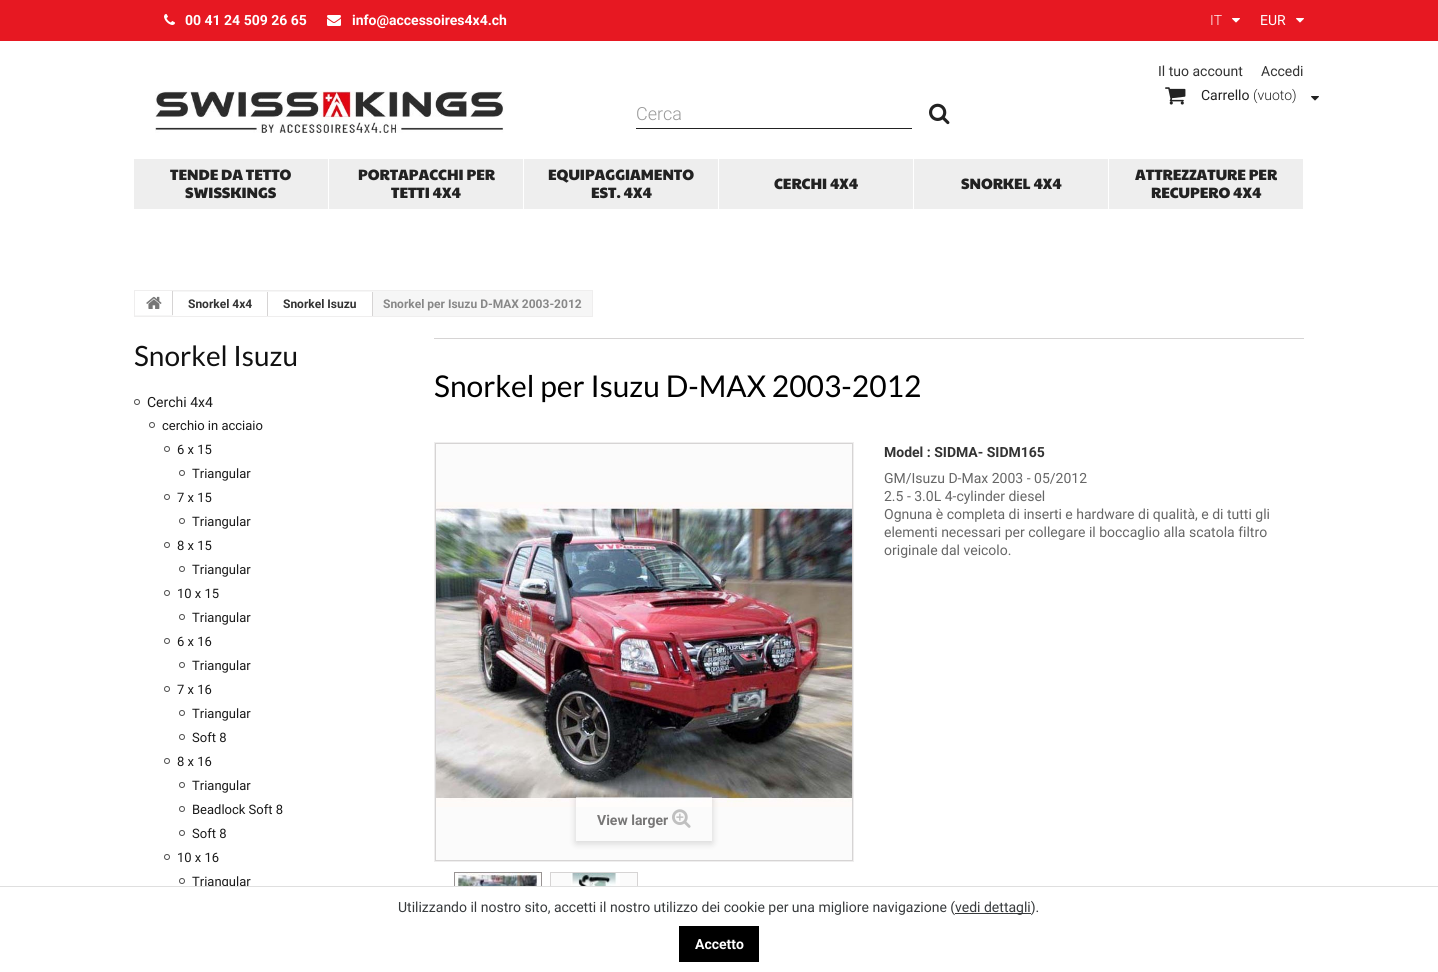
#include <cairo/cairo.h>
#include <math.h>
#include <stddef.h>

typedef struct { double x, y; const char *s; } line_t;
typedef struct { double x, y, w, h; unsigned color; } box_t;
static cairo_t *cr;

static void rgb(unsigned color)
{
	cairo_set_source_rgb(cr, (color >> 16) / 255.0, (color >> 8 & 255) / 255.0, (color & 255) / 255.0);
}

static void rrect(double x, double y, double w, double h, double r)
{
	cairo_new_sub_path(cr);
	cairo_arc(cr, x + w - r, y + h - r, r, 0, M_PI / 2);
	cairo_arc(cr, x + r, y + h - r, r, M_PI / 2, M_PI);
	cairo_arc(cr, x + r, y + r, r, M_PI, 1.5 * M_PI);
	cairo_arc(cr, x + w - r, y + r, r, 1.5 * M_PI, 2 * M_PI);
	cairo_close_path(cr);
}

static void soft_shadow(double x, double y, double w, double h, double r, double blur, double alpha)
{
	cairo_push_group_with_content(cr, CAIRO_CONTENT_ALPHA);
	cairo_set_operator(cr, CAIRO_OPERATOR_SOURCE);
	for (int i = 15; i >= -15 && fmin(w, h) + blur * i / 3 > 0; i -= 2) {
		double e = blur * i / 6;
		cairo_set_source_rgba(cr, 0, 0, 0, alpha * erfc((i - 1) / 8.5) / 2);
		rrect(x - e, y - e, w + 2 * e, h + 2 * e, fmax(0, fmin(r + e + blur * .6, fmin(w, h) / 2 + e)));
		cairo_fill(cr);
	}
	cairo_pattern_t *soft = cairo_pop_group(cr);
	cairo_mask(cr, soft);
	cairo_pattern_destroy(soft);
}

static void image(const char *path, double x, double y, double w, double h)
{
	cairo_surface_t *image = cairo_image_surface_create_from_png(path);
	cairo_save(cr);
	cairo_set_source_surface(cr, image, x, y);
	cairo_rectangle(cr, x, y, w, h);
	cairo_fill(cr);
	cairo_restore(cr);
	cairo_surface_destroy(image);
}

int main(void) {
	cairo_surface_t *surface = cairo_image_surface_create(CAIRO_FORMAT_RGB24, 1438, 972);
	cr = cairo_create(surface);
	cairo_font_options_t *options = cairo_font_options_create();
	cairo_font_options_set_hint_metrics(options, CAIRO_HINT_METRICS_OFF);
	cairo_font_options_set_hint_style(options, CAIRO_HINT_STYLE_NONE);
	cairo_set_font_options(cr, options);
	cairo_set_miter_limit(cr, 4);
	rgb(0xffffff);
	cairo_paint(cr);
	rgb(0xe71822);
	cairo_rectangle(cr, 0, 0, 1438, 41);
	cairo_fill(cr);
	image("img/1.png", 164, 14, 11, 11);
	image("img/2.png", 327, 15, 14, 11);
	image("img/3.png", 1232, 18, 8, 5);
	image("img/3.png", 1296, 18, 8, 5);
	image("img/4.png", 155, 91, 349, 42);
	rgb(0x222222);
	cairo_rectangle(cr, 636, 128, 276, 1);
	cairo_fill(cr);
	image("img/5.png", 929, 103, 21, 22);
	image("img/6.png", 1165, 87, 21, 18);
	image("img/7.png", 1311, 96, 8, 5);
	{
		static const box_t items[] = {
			{134, 159, 1169, 50, 0xeeeeee},
			{328, 159, 1, 50, 0xffffff},
			{523, 159, 1, 50, 0xffffff},
			{718, 159, 1, 50, 0xffffff},
			{913, 159, 1, 50, 0xffffff},
			{1108, 159, 1, 50, 0xffffff},
		};
		for (size_t i = 0; i < sizeof items / sizeof *items; i++) {
			rgb(items[i].color);
			cairo_rectangle(cr, items[i].x, items[i].y, items[i].w, items[i].h);
			cairo_fill(cr);
		}
	}
	rgb(0xf6f6f6);
	cairo_rectangle(cr, 134.5, 290.5, 458, 26);
	cairo_fill_preserve(cr);
	rgb(0xefeeee);
	cairo_set_line_width(cr, 1);
	cairo_stroke(cr);
	rgb(0xffffff);
	cairo_rectangle(cr, 135, 291, 37, 24);
	cairo_fill(cr);
	rgb(0xd6d4d4);
	cairo_rectangle(cr, 172, 291, 1, 24);
	cairo_fill(cr);
	image("img/8.png", 146, 296, 16, 13);
	{
		static const box_t items[] = {
			{173, 292, 94, 24, 0xffffff},
			{267, 292, 1, 24, 0xd6d4d4},
			{268, 292, 104, 24, 0xffffff},
			{372, 292, 1, 24, 0xd6d4d4},
		};
		for (size_t i = 0; i < sizeof items / sizeof *items; i++) {
			rgb(items[i].color);
			cairo_rectangle(cr, items[i].x, items[i].y, items[i].w, items[i].h);
			cairo_fill(cr);
		}
	}
	cairo_arc(cr, 137, 402, 2.5, 0, 2 * M_PI);
	rgb(0x4e4e4e);
	cairo_stroke(cr);
	cairo_arc(cr, 152, 425, 2.5, 0, 2 * M_PI);
	cairo_stroke(cr);
	cairo_arc(cr, 167, 449, 2.5, 0, 2 * M_PI);
	cairo_stroke(cr);
	cairo_arc(cr, 182, 473, 2.5, 0, 2 * M_PI);
	cairo_stroke(cr);
	cairo_arc(cr, 167, 497, 2.5, 0, 2 * M_PI);
	cairo_stroke(cr);
	cairo_arc(cr, 182, 521, 2.5, 0, 2 * M_PI);
	cairo_stroke(cr);
	cairo_arc(cr, 167, 545, 2.5, 0, 2 * M_PI);
	cairo_stroke(cr);
	cairo_arc(cr, 182, 569, 2.5, 0, 2 * M_PI);
	cairo_stroke(cr);
	cairo_arc(cr, 167, 593, 2.5, 0, 2 * M_PI);
	cairo_stroke(cr);
	cairo_arc(cr, 182, 617, 2.5, 0, 2 * M_PI);
	cairo_stroke(cr);
	cairo_arc(cr, 167, 641, 2.5, 0, 2 * M_PI);
	cairo_stroke(cr);
	cairo_arc(cr, 182, 665, 2.5, 0, 2 * M_PI);
	cairo_stroke(cr);
	cairo_arc(cr, 167, 689, 2.5, 0, 2 * M_PI);
	cairo_stroke(cr);
	cairo_arc(cr, 182, 713, 2.5, 0, 2 * M_PI);
	cairo_stroke(cr);
	cairo_arc(cr, 182, 737, 2.5, 0, 2 * M_PI);
	cairo_stroke(cr);
	cairo_arc(cr, 167, 761, 2.5, 0, 2 * M_PI);
	cairo_stroke(cr);
	cairo_arc(cr, 182, 785, 2.5, 0, 2 * M_PI);
	cairo_stroke(cr);
	cairo_arc(cr, 182, 809, 2.5, 0, 2 * M_PI);
	cairo_stroke(cr);
	cairo_arc(cr, 182, 833, 2.5, 0, 2 * M_PI);
	cairo_stroke(cr);
	cairo_arc(cr, 167, 857, 2.5, 0, 2 * M_PI);
	cairo_stroke(cr);
	cairo_arc(cr, 182, 881, 2.5, 0, 2 * M_PI);
	cairo_stroke(cr);
	rgb(0xd6d4d4);
	cairo_rectangle(cr, 434, 338, 870, 1);
	cairo_fill(cr);
	cairo_rectangle(cr, 434.5, 442.5, 419, 419);
	rgb(0xefeeee);
	cairo_stroke(cr);
	rgb(0xfbfbfb);
	cairo_rectangle(cr, 435.5, 443.5, 417, 417);
	cairo_fill_preserve(cr);
	rgb(0xd6d4d4);
	cairo_stroke(cr);
	image("img/9.png", 436, 502, 416, 305);
	cairo_save(cr);
	cairo_set_fill_rule(cr, CAIRO_FILL_RULE_EVEN_ODD);
	cairo_new_path(cr);
	cairo_move_to(cr, 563, 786);
	cairo_line_to(cr, 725, 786);
	cairo_line_to(cr, 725, 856);
	cairo_line_to(cr, 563, 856);
	cairo_close_path(cr);
	cairo_move_to(cr, 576, 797);
	cairo_line_to(cr, 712, 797);
	cairo_line_to(cr, 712, 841);
	cairo_line_to(cr, 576, 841);
	cairo_close_path(cr);
	cairo_clip(cr);
	rgb(0x000000);
	soft_shadow(576, 799, 136, 44, 0, 4, 0.16);
	cairo_restore(cr);
	cairo_set_source_rgba(cr, 1, 1, 1, 0.5);
	cairo_rectangle(cr, 576, 797, 136, 10);
	cairo_fill(cr);
	image("img/10.png", 672, 809, 19, 19);
	rgb(0xfbfbfb);
	cairo_rectangle(cr, 455, 873, 1, 13);
	cairo_fill(cr);
	cairo_rectangle(cr, 454.5, 872.5, 87, 60);
	rgb(0x989393);
	cairo_stroke(cr);
	image("img/11.png", 456, 873, 85, 13);
	rgb(0xfbfbfb);
	cairo_rectangle(cr, 551, 873, 86, 13);
	cairo_fill(cr);
	cairo_rectangle(cr, 550.5, 872.5, 87, 60);
	rgb(0xd6d4d4);
	cairo_stroke(cr);
	image("img/12.png", 571, 873, 49, 13);
	rgb(0x373a3c);
	cairo_rectangle(cr, 955, 913, 76, 1);
	cairo_fill(cr);
	rgb(0x000000);
	cairo_rectangle(cr, 679, 926, 80, 36);
	cairo_fill(cr);
	cairo_select_font_face(cr, "Roboto", CAIRO_FONT_SLANT_NORMAL, CAIRO_FONT_WEIGHT_BOLD);
	cairo_set_font_size(cr, 14);
	rgb(0xffffff);
	cairo_move_to(cr, 185, 25);
	cairo_show_text(cr, "00 41 24 509 26 65");
	cairo_move_to(cr, 352, 25);
	cairo_show_text(cr, "info@accessoires4x4.ch");
	cairo_select_font_face(cr, "Roboto Light", CAIRO_FONT_SLANT_NORMAL, CAIRO_FONT_WEIGHT_NORMAL);
	cairo_move_to(cr, 1210, 25);
	cairo_show_text(cr, "IT");
	cairo_select_font_face(cr, "Roboto", CAIRO_FONT_SLANT_NORMAL, CAIRO_FONT_WEIGHT_NORMAL);
	cairo_move_to(cr, 1260, 25);
	cairo_show_text(cr, "EUR");
	rgb(0x333333);
	cairo_move_to(cr, 1158, 76);
	cairo_show_text(cr, "Il tuo account");
	cairo_move_to(cr, 1261, 76);
	cairo_show_text(cr, "Accedi");
	cairo_select_font_face(cr, "Roboto Light", CAIRO_FONT_SLANT_NORMAL, CAIRO_FONT_WEIGHT_NORMAL);
	cairo_set_font_size(cr, 18);
	rgb(0x999999);
	cairo_move_to(cr, 636, 120);
	cairo_show_text(cr, "Cerca");
	cairo_select_font_face(cr, "Roboto", CAIRO_FONT_SLANT_NORMAL, CAIRO_FONT_WEIGHT_NORMAL);
	cairo_set_font_size(cr, 14);
	rgb(0x222222);
	cairo_move_to(cr, 1201, 100);
	cairo_show_text(cr, "Carrello");
	cairo_select_font_face(cr, "Roboto Light", CAIRO_FONT_SLANT_NORMAL, CAIRO_FONT_WEIGHT_NORMAL);
	cairo_move_to(cr, 1253, 100);
	cairo_show_text(cr, "(vuoto)");
	cairo_select_font_face(cr, "Paytone One", CAIRO_FONT_SLANT_NORMAL, CAIRO_FONT_WEIGHT_NORMAL);
	cairo_set_font_size(cr, 15);
	{
		static const line_t items[] = {
			{170, 180, "TENDE DA TETTO"},
			{185, 198, "SWISSKINGS"},
			{358, 180, "PORTAPACCHI PER"},
			{391, 198, "TETTI 4X4"},
			{548, 180, "EQUIPAGGIAMENTO"},
			{591, 198, "EST. 4X4"},
			{774, 189, "CERCHI 4X4"},
			{961, 189, "SNORKEL 4X4"},
			{1135, 180, "ATTREZZATURE PER"},
			{1151, 198, "RECUPERO 4X4"},
		};
		for (size_t i = 0; i < sizeof items / sizeof *items; i++) {
			cairo_move_to(cr, items[i].x, items[i].y);
			cairo_show_text(cr, items[i].s);
		}
	}
	cairo_select_font_face(cr, "Roboto", CAIRO_FONT_SLANT_NORMAL, CAIRO_FONT_WEIGHT_BOLD);
	cairo_set_font_size(cr, 12);
	rgb(0x333333);
	cairo_move_to(cr, 188, 308);
	cairo_show_text(cr, "Snorkel 4x4");
	cairo_move_to(cr, 283, 308);
	cairo_show_text(cr, "Snorkel Isuzu");
	rgb(0x888888);
	cairo_move_to(cr, 383, 308);
	cairo_show_text(cr, "Snorkel per Isuzu D-MAX 2003-2012");
	cairo_select_font_face(cr, "Lato", CAIRO_FONT_SLANT_NORMAL, CAIRO_FONT_WEIGHT_NORMAL);
	cairo_set_font_size(cr, 28);
	rgb(0x111111);
	cairo_move_to(cr, 134, 366);
	cairo_show_text(cr, "Snorkel Isuzu");
	cairo_select_font_face(cr, "Roboto", CAIRO_FONT_SLANT_NORMAL, CAIRO_FONT_WEIGHT_NORMAL);
	cairo_set_font_size(cr, 14);
	rgb(0x1a1a1a);
	cairo_move_to(cr, 147, 407);
	cairo_show_text(cr, "Cerchi 4x4");
	cairo_set_font_size(cr, 13);
	{
		static const line_t items[] = {
			{162, 430, "cerchio in acciaio"},
			{177, 454, "6 x 15"},
			{192, 478, "Triangular"},
			{177, 502, "7 x 15"},
			{192, 526, "Triangular"},
			{177, 550, "8 x 15"},
			{192, 574, "Triangular"},
			{177, 598, "10 x 15"},
			{192, 622, "Triangular"},
			{177, 646, "6 x 16"},
			{192, 670, "Triangular"},
			{177, 694, "7 x 16"},
			{192, 718, "Triangular"},
			{192, 742, "Soft 8"},
			{177, 766, "8 x 16"},
			{192, 790, "Triangular"},
			{192, 814, "Beadlock Soft 8"},
			{192, 838, "Soft 8"},
			{177, 862, "10 x 16"},
			{192, 886, "Triangular"},
		};
		for (size_t i = 0; i < sizeof items / sizeof *items; i++) {
			cairo_move_to(cr, items[i].x, items[i].y);
			cairo_show_text(cr, items[i].s);
		}
	}
	cairo_select_font_face(cr, "Lato", CAIRO_FONT_SLANT_NORMAL, CAIRO_FONT_WEIGHT_NORMAL);
	cairo_set_font_size(cr, 30);
	rgb(0x000000);
	cairo_move_to(cr, 434, 397);
	cairo_show_text(cr, "Snorkel per Isuzu D-MAX 2003-2012");
	cairo_select_font_face(cr, "Roboto", CAIRO_FONT_SLANT_NORMAL, CAIRO_FONT_WEIGHT_BOLD);
	cairo_set_font_size(cr, 14);
	rgb(0x333333);
	cairo_move_to(cr, 884, 457);
	cairo_show_text(cr, "Model : SIDMA- SIDM165");
	cairo_select_font_face(cr, "Roboto", CAIRO_FONT_SLANT_NORMAL, CAIRO_FONT_WEIGHT_NORMAL);
	rgb(0x666666);
	{
		static const line_t items[] = {
			{884, 483, "GM/Isuzu D-Max 2003 - 05/2012"},
			{884, 501, "2.5 - 3.0L 4-cylinder diesel"},
			{884, 519, "Ognuna è completa di inserti e hardware di qualità, e di tutti gli"},
			{884, 537, "elementi necessari per collegare il boccaglio alla scatola filtro"},
			{884, 555, "originale dal veicolo."},
		};
		for (size_t i = 0; i < sizeof items / sizeof *items; i++) {
			cairo_move_to(cr, items[i].x, items[i].y);
			cairo_show_text(cr, items[i].s);
		}
	}
	cairo_select_font_face(cr, "Roboto", CAIRO_FONT_SLANT_NORMAL, CAIRO_FONT_WEIGHT_BOLD);
	rgb(0x777676);
	cairo_move_to(cr, 597, 825);
	cairo_show_text(cr, "View larger");
	rgb(0xffffff);
	cairo_rectangle(cr, 222, 887, 416, 46);
	cairo_fill(cr);
	rgb(0xdfdfdf);
	cairo_rectangle(cr, 0, 886, 1438, 1);
	cairo_fill(cr);
	cairo_select_font_face(cr, "Roboto", CAIRO_FONT_SLANT_NORMAL, CAIRO_FONT_WEIGHT_NORMAL);
	rgb(0x373a3c);
	cairo_move_to(cr, 398, 912);
	cairo_show_text(cr, "Utilizzando il nostro sito, accetti il nostro utilizzo dei cookie per una migliore navigazione (");
	cairo_move_to(cr, 955, 912);
	cairo_show_text(cr, "vedi dettagli).");
	cairo_select_font_face(cr, "Roboto", CAIRO_FONT_SLANT_NORMAL, CAIRO_FONT_WEIGHT_BOLD);
	rgb(0xffffff);
	cairo_move_to(cr, 695, 949);
	cairo_show_text(cr, "Accetto");
	cairo_surface_write_to_png(surface, "page.png");
	cairo_font_options_destroy(options);
	cairo_destroy(cr);
	cairo_surface_destroy(surface);
	return 0;
}
